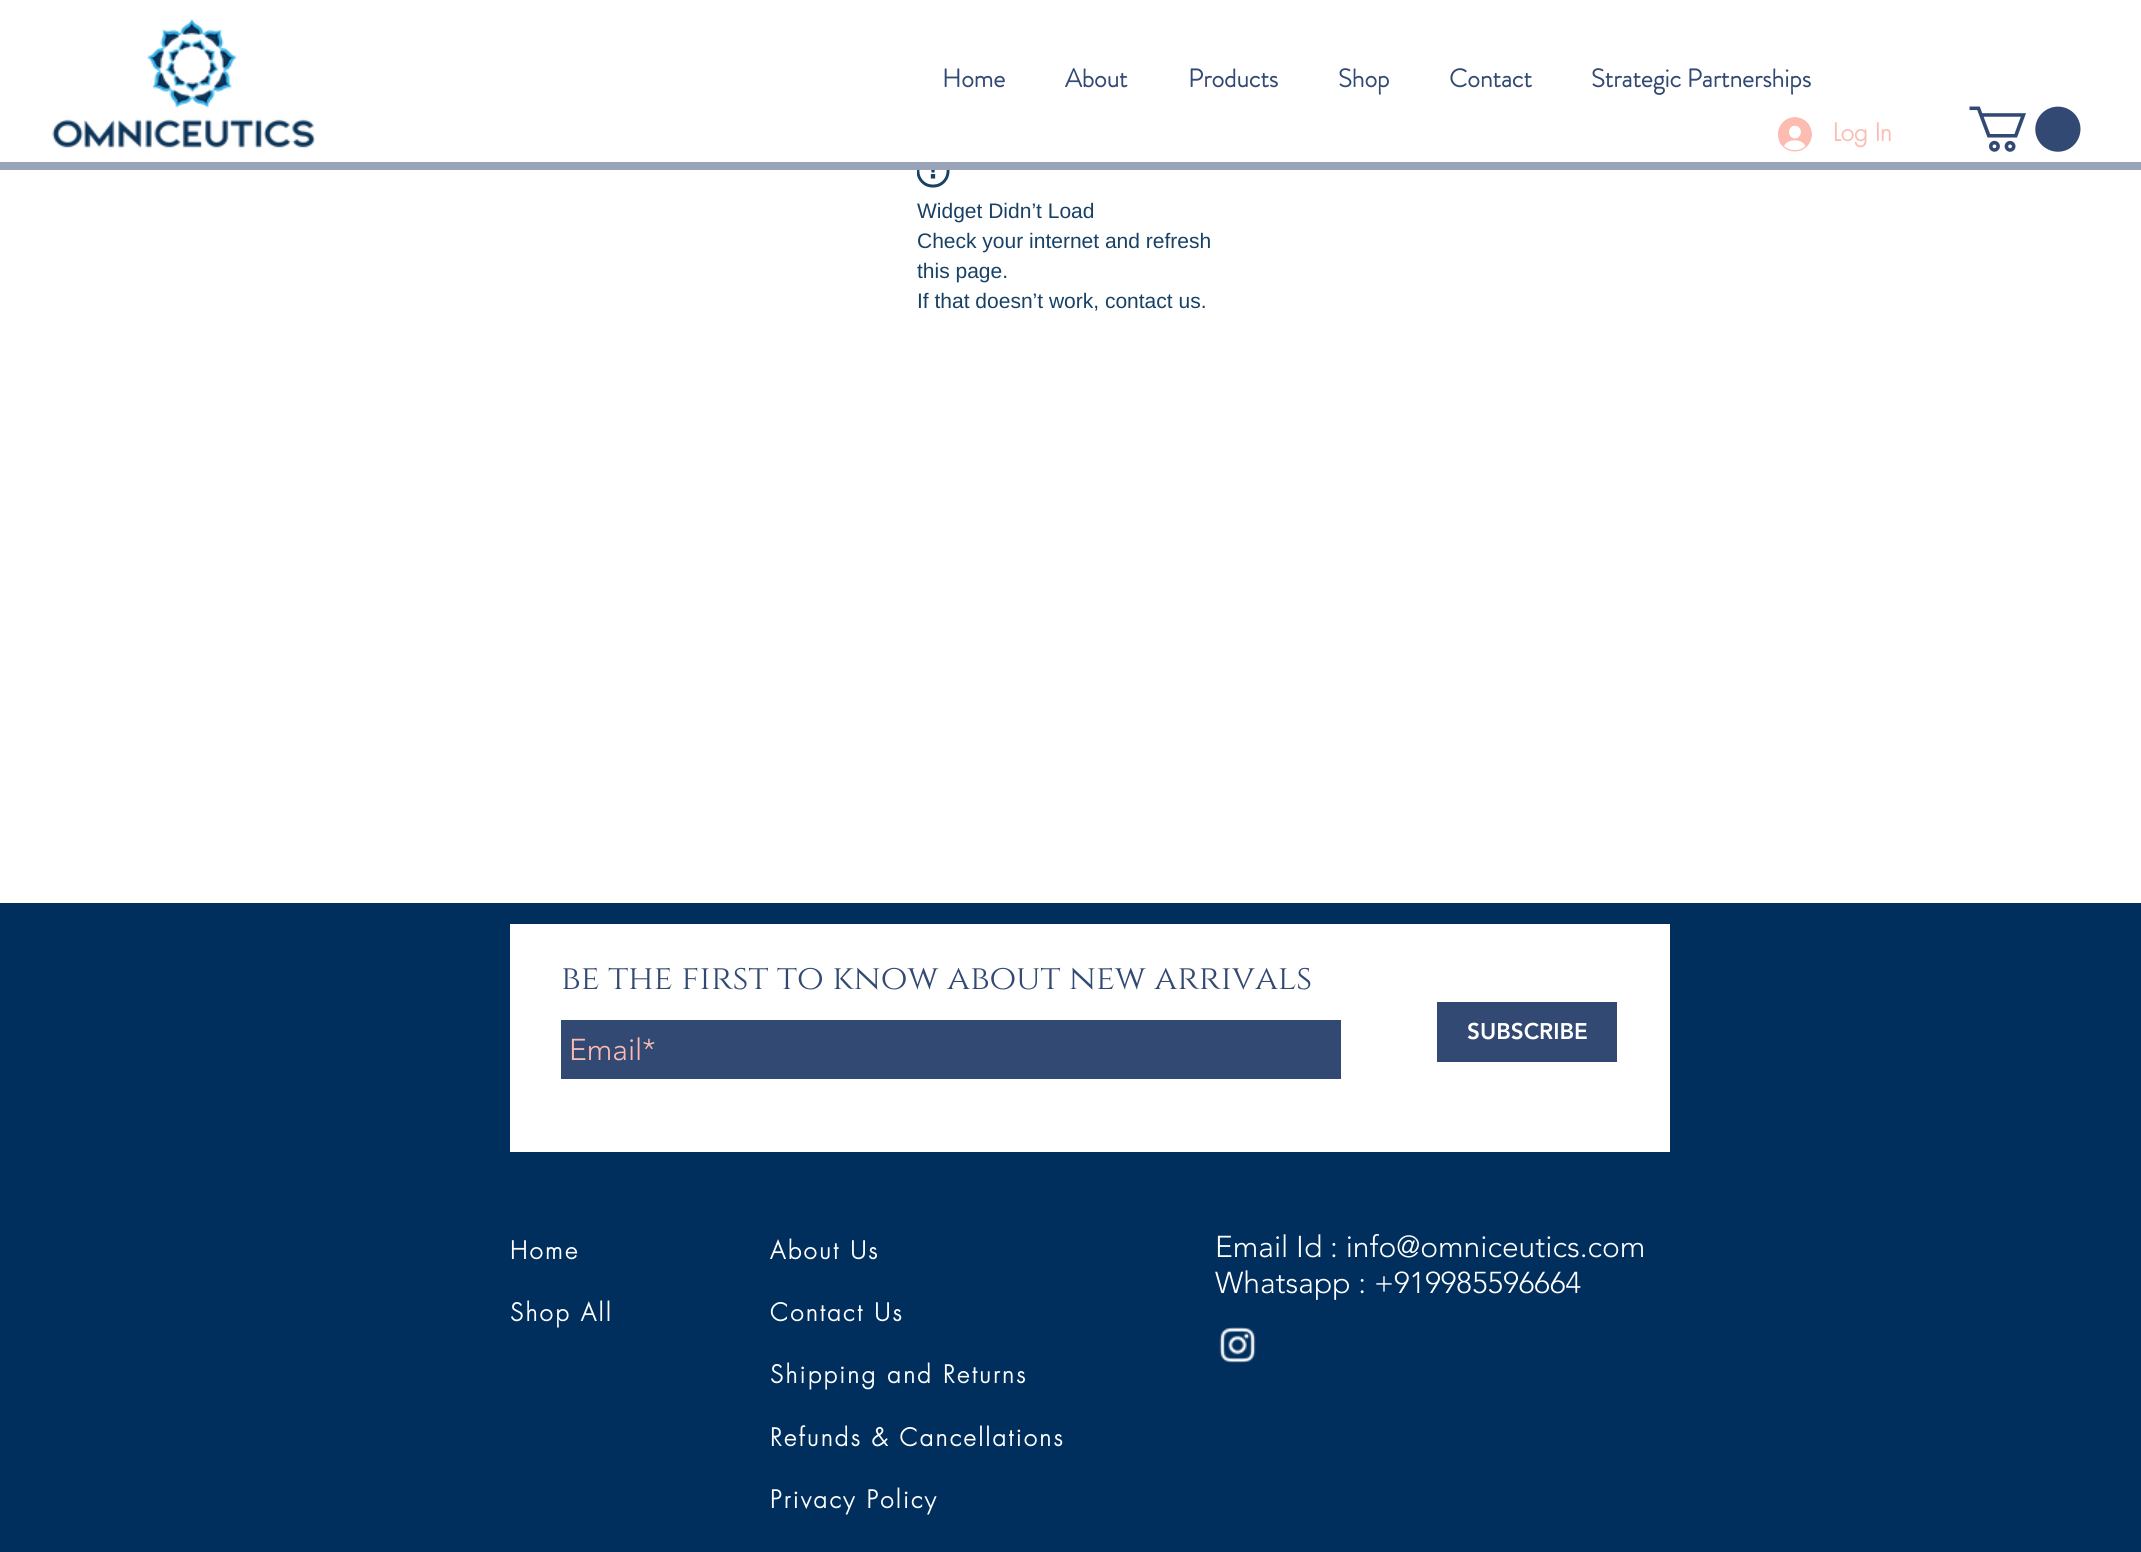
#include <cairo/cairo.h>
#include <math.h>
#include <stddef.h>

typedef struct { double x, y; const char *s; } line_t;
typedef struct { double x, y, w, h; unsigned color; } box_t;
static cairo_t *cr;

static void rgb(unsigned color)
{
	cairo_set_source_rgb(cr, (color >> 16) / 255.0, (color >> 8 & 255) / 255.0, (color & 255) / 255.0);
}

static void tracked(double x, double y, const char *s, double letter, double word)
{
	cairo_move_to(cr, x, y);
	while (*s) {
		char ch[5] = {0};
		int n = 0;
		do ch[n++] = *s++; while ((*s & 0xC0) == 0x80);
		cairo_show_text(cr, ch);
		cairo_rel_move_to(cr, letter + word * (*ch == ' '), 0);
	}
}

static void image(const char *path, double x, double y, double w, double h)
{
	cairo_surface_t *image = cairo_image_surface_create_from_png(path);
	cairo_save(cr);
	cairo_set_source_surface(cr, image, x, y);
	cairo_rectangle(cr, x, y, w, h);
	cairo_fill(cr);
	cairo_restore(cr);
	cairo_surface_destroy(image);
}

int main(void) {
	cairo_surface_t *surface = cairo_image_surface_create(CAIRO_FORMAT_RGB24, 2141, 1552);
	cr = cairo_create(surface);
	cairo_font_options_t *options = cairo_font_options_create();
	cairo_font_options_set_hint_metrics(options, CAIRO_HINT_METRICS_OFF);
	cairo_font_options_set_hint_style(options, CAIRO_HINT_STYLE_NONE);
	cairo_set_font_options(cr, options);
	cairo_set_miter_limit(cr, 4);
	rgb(0xffffff);
	cairo_paint(cr);
	image("img/1.png", 52, 19, 264, 129);
	image("img/2.png", 1778, 117, 34, 35);
	image("img/3.png", 1969, 106, 112, 46);
	rgb(0x9aa4b8);
	cairo_rectangle(cr, 0, 162, 2141, 8);
	cairo_fill(cr);
	image("img/4.png", 917, 170, 33, 18);
	{
		static const box_t items[] = {
			{0, 903, 2141, 649, 0x002e5d},
			{510, 924, 1160, 228, 0xffffff},
			{1437, 1002, 180, 60, 0x324973},
			{561, 1020, 780, 59, 0x324973},
		};
		for (size_t i = 0; i < sizeof items / sizeof *items; i++) {
			rgb(items[i].color);
			cairo_rectangle(cr, items[i].x, items[i].y, items[i].w, items[i].h);
			cairo_fill(cr);
		}
	}
	image("img/5.png", 1219, 1327, 37, 36);
	cairo_select_font_face(cr, "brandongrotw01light", CAIRO_FONT_SLANT_NORMAL, CAIRO_FONT_WEIGHT_BOLD);
	cairo_set_font_size(cr, 25.5);
	{
		static const line_t items[] = {
			{942, 87, "Home"},
			{1065, 87, "About"},
			{1188, 87, "Products"},
			{1338, 87, "Shop"},
			{1449, 87, "Contact"},
			{1591, 87, "Strategic Partnerships"},
		};
		for (size_t i = 0; i < sizeof items / sizeof *items; i++) {
			cairo_move_to(cr, items[i].x, items[i].y);
			cairo_show_text(cr, items[i].s);
		}
	}
	cairo_select_font_face(cr, "futura", CAIRO_FONT_SLANT_NORMAL, CAIRO_FONT_WEIGHT_BOLD);
	cairo_set_font_size(cr, 24);
	rgb(0xfcbcb2);
	cairo_move_to(cr, 1833, 141);
	cairo_show_text(cr, "Log In");
	cairo_select_font_face(cr, "Liberation Sans", CAIRO_FONT_SLANT_NORMAL, CAIRO_FONT_WEIGHT_NORMAL);
	cairo_set_font_size(cr, 21);
	rgb(0x174165);
	{
		static const line_t items[] = {
			{917, 218, "Widget Didn’t Load"},
			{917, 248, "Check your internet and refresh"},
			{917, 278, "this page."},
			{917, 308, "If that doesn’t work, contact us."},
		};
		for (size_t i = 0; i < sizeof items / sizeof *items; i++) {
			cairo_move_to(cr, items[i].x, items[i].y);
			cairo_show_text(cr, items[i].s);
		}
	}
	cairo_select_font_face(cr, "Cinzel", CAIRO_FONT_SLANT_NORMAL, CAIRO_FONT_WEIGHT_NORMAL);
	cairo_set_font_size(cr, 34.5);
	rgb(0x324973);
	cairo_move_to(cr, 561, 989);
	cairo_show_text(cr, "be the first to know about new arrivals");
	cairo_select_font_face(cr, "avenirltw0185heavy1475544 Black", CAIRO_FONT_SLANT_NORMAL, CAIRO_FONT_WEIGHT_NORMAL);
	cairo_set_font_size(cr, 22.5);
	rgb(0xffffff);
	cairo_move_to(cr, 1467, 1039);
	cairo_show_text(cr, "SUBSCRIBE");
	cairo_select_font_face(cr, "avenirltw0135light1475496 Light", CAIRO_FONT_SLANT_NORMAL, CAIRO_FONT_WEIGHT_NORMAL);
	cairo_set_font_size(cr, 30);
	rgb(0xfcbcb2);
	cairo_move_to(cr, 569, 1060);
	cairo_show_text(cr, "Email*");
	cairo_select_font_face(cr, "futura", CAIRO_FONT_SLANT_NORMAL, CAIRO_FONT_WEIGHT_BOLD);
	cairo_set_font_size(cr, 24);
	rgb(0xffffff);
	{
		static const line_t items[] = {
			{510, 1259, "Home"},
			{510, 1321, "Shop All"},
			{770, 1259, "About Us"},
			{770, 1321, "Contact Us"},
			{770, 1383, "Shipping and Returns"},
			{770, 1446, "Refunds & Cancellations"},
			{770, 1508, "Privacy Policy"},
		};
		for (size_t i = 0; i < sizeof items / sizeof *items; i++) {
			tracked(items[i].x, items[i].y, items[i].s, 2.4, 0);
		}
	}
	cairo_select_font_face(cr, "avenirltw0135light1475496 Light", CAIRO_FONT_SLANT_NORMAL, CAIRO_FONT_WEIGHT_NORMAL);
	cairo_set_font_size(cr, 30);
	cairo_move_to(cr, 1215, 1257);
	cairo_show_text(cr, "Email Id : info@omniceutics.com");
	cairo_move_to(cr, 1215, 1293);
	cairo_show_text(cr, "Whatsapp : +919985596664");
	cairo_surface_write_to_png(surface, "page.png");
	cairo_font_options_destroy(options);
	cairo_destroy(cr);
	cairo_surface_destroy(surface);
	return 0;
}
